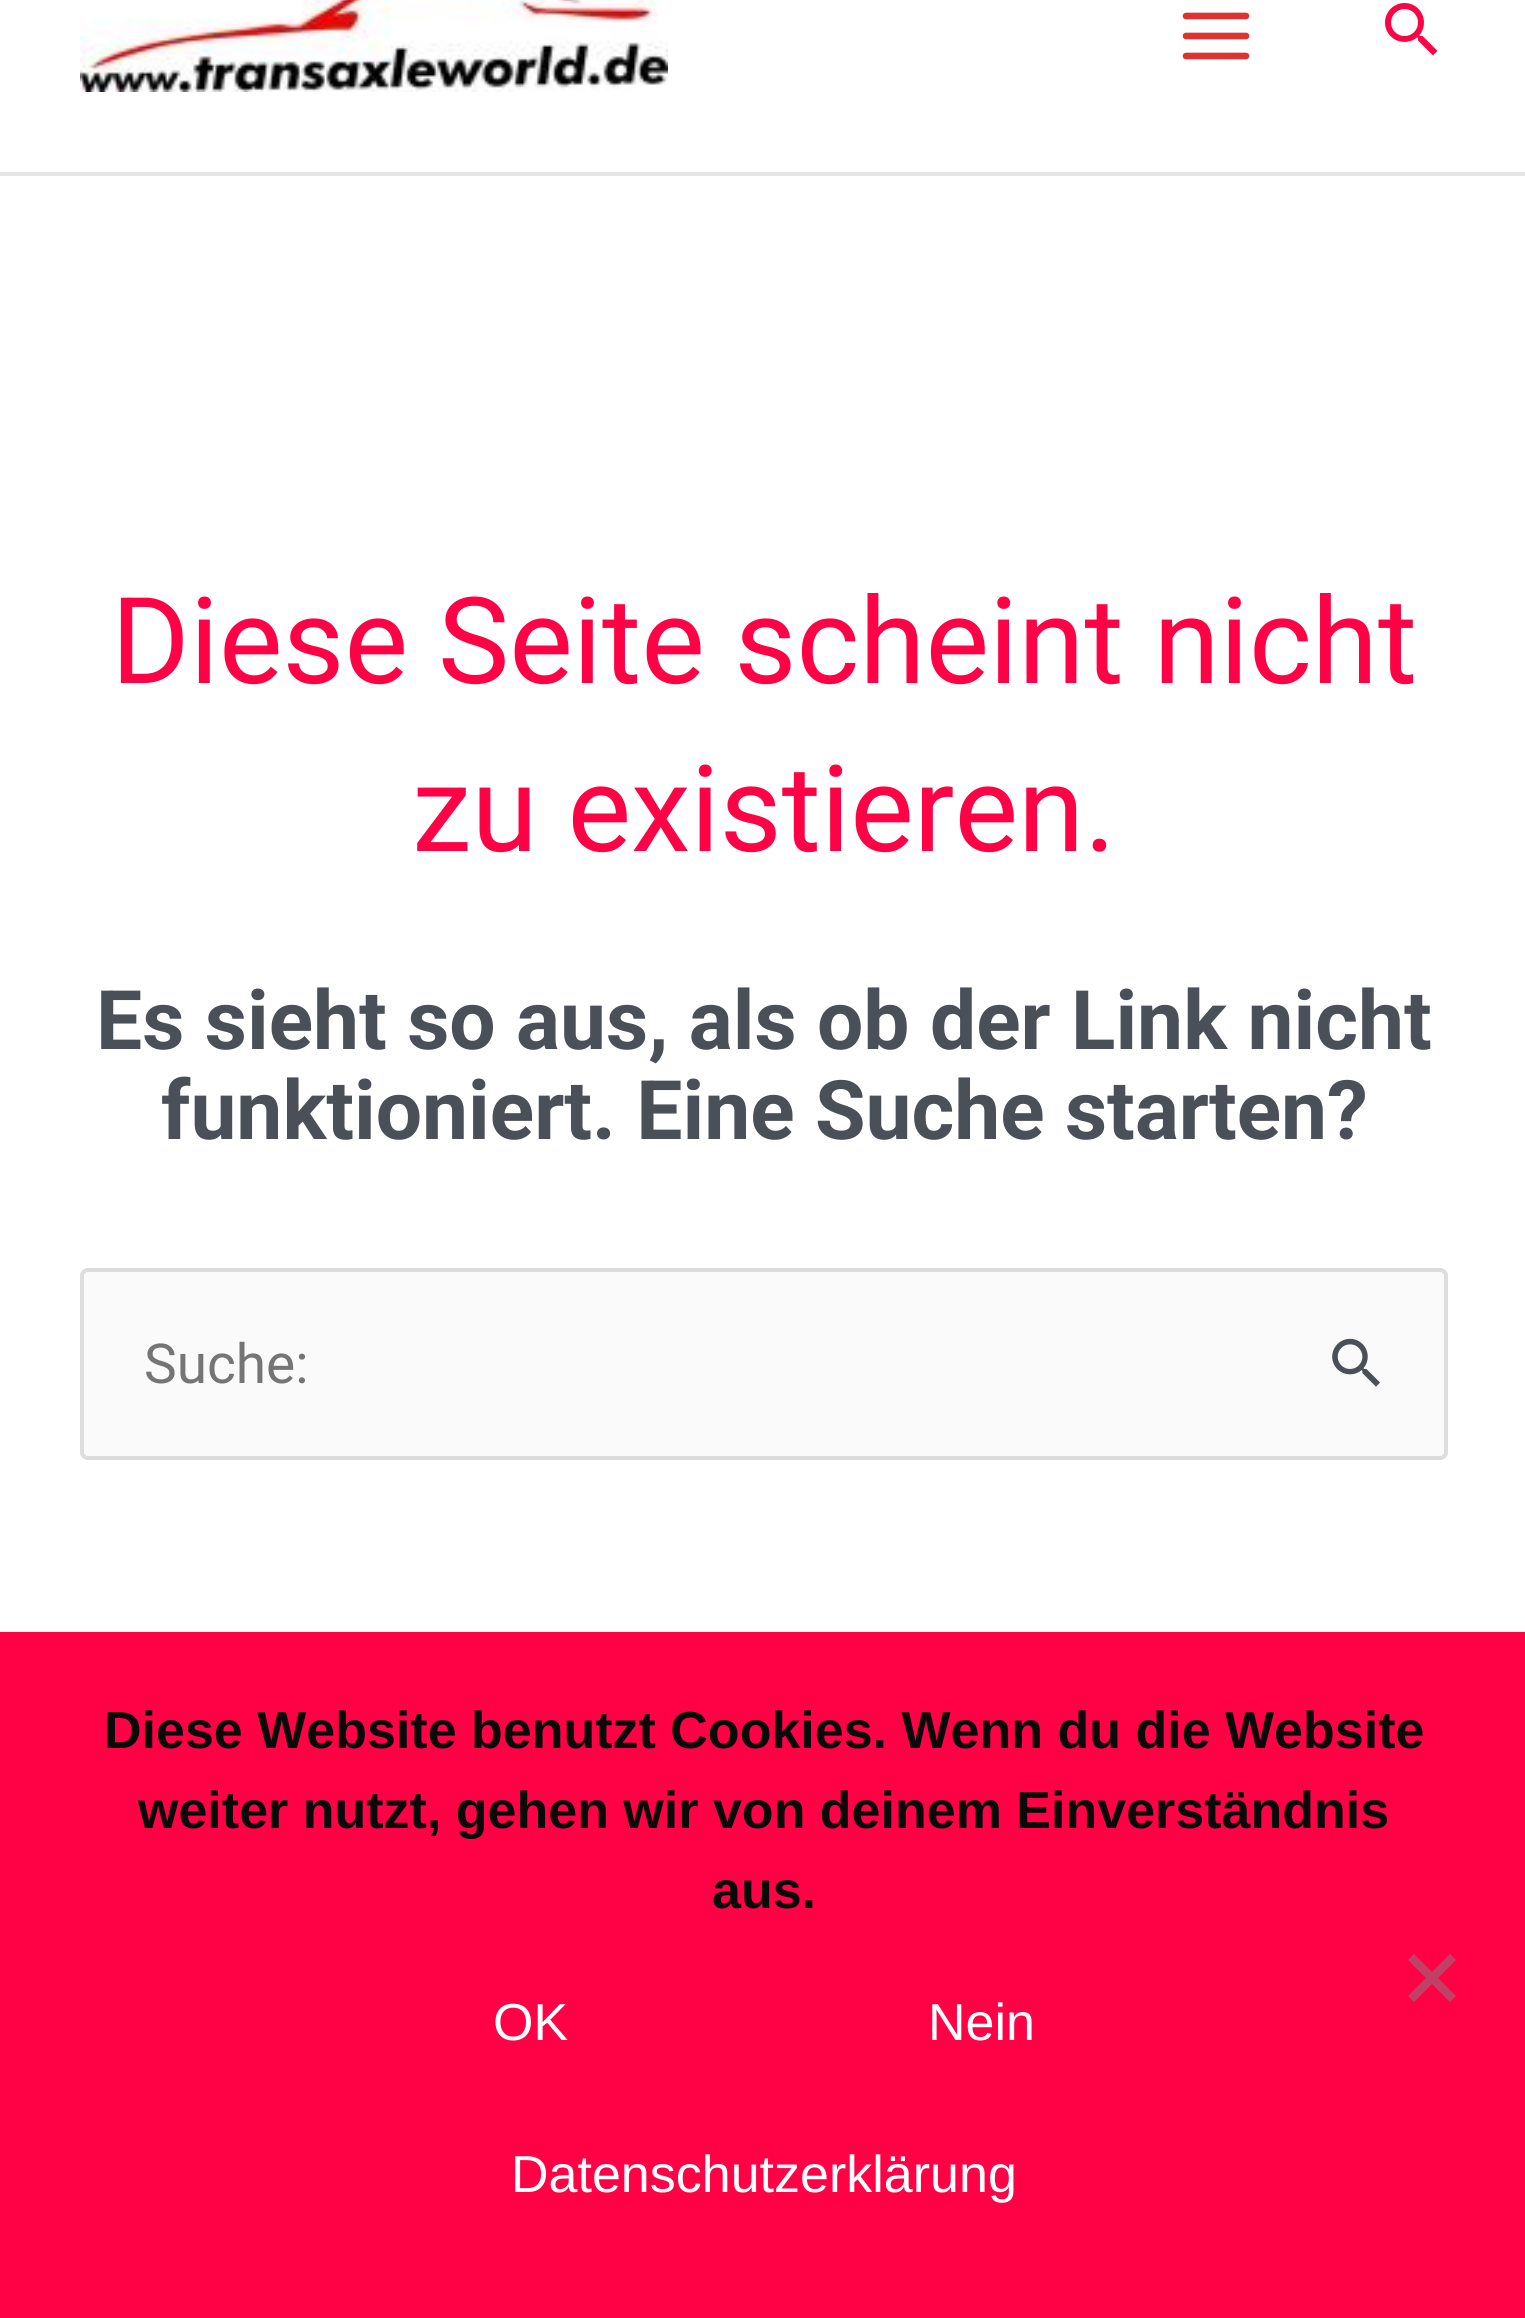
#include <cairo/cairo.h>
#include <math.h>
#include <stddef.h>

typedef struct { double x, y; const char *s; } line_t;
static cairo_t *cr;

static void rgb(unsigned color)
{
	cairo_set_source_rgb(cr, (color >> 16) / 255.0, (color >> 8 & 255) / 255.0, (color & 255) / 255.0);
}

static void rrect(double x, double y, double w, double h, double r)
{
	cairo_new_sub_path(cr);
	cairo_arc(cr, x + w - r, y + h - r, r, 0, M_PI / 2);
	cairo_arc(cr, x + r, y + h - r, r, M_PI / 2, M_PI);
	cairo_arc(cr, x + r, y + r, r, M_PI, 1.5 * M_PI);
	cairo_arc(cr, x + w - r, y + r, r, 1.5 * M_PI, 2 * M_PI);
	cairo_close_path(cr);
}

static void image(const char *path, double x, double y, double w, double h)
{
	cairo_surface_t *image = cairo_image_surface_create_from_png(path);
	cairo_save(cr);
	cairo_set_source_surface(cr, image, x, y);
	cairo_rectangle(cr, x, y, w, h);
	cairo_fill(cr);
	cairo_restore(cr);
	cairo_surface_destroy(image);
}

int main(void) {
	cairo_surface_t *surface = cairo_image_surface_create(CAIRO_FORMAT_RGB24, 1525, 2318);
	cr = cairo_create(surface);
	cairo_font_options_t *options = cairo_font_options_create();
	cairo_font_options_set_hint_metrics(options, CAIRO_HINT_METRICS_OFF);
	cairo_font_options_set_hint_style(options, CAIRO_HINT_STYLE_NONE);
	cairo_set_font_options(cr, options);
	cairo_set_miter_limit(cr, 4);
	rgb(0xffffff);
	cairo_paint(cr);
	rgb(0xe5e5e5);
	cairo_rectangle(cr, 0, 172, 1525, 4);
	cairo_fill(cr);
	image("img/1.png", 80, 0, 588, 92);
	image("img/2.png", 1182, 12, 68, 48);
	image("img/3.png", 1385, 3, 53, 53);
	rgb(0xfafafa);
	rrect(82, 1270, 1364, 188, 6);
	cairo_fill_preserve(cr);
	rgb(0xdddddd);
	cairo_set_line_width(cr, 4);
	cairo_stroke(cr);
	image("img/4.png", 1332, 1338, 48, 49);
	rgb(0xff0245);
	cairo_rectangle(cr, 0, 1632, 1525, 686);
	cairo_fill(cr);
	rgb(0xc04163);
	cairo_new_path(cr);
	cairo_move_to(cr, 1450, 1954);
	cairo_line_to(cr, 1456, 1960);
	cairo_line_to(cr, 1414, 2002);
	cairo_line_to(cr, 1408, 1996);
	cairo_close_path(cr);
	cairo_fill(cr);
	cairo_new_path(cr);
	cairo_move_to(cr, 1408, 1960);
	cairo_line_to(cr, 1414, 1954);
	cairo_line_to(cr, 1456, 1996);
	cairo_line_to(cr, 1450, 2002);
	cairo_close_path(cr);
	cairo_fill(cr);
	cairo_select_font_face(cr, "Roboto", CAIRO_FONT_SLANT_NORMAL, CAIRO_FONT_WEIGHT_NORMAL);
	cairo_set_font_size(cr, 120);
	rgb(0xff0245);
	cairo_move_to(cr, 111, 683);
	cairo_show_text(cr, "Diese Seite scheint nicht");
	cairo_move_to(cr, 412, 851);
	cairo_show_text(cr, "zu existieren.");
	cairo_select_font_face(cr, "Roboto", CAIRO_FONT_SLANT_NORMAL, CAIRO_FONT_WEIGHT_BOLD);
	cairo_set_font_size(cr, 82.1);
	rgb(0x4b4f58);
	cairo_move_to(cr, 96, 1049);
	cairo_show_text(cr, "Es sieht so aus, als ob der Link nicht");
	cairo_move_to(cr, 161, 1139);
	cairo_show_text(cr, "funktioniert. Eine Suche starten?");
	cairo_select_font_face(cr, "Roboto", CAIRO_FONT_SLANT_NORMAL, CAIRO_FONT_WEIGHT_NORMAL);
	cairo_set_font_size(cr, 55);
	rgb(0x757575);
	cairo_move_to(cr, 144, 1383);
	cairo_show_text(cr, "Suche:");
	cairo_select_font_face(cr, "Liberation Sans", CAIRO_FONT_SLANT_NORMAL, CAIRO_FONT_WEIGHT_BOLD);
	cairo_set_font_size(cr, 52);
	rgb(0x0a0a0a);
	{
		static const line_t items[] = {
			{104, 1748, "Diese Website benutzt Cookies. Wenn du die Website"},
			{138, 1828, "weiter nutzt, gehen wir von deinem Einverständnis"},
			{712, 1908, "aus."},
		};
		for (size_t i = 0; i < sizeof items / sizeof *items; i++) {
			cairo_move_to(cr, items[i].x, items[i].y);
			cairo_show_text(cr, items[i].s);
		}
	}
	cairo_select_font_face(cr, "Liberation Sans", CAIRO_FONT_SLANT_NORMAL, CAIRO_FONT_WEIGHT_NORMAL);
	rgb(0xffffff);
	{
		static const line_t items[] = {
			{493, 2040, "OK"},
			{928, 2040, "Nein"},
			{511, 2192, "Datenschutzerklärung"},
		};
		for (size_t i = 0; i < sizeof items / sizeof *items; i++) {
			cairo_move_to(cr, items[i].x, items[i].y);
			cairo_show_text(cr, items[i].s);
		}
	}
	cairo_surface_write_to_png(surface, "page.png");
	cairo_font_options_destroy(options);
	cairo_destroy(cr);
	cairo_surface_destroy(surface);
	return 0;
}
